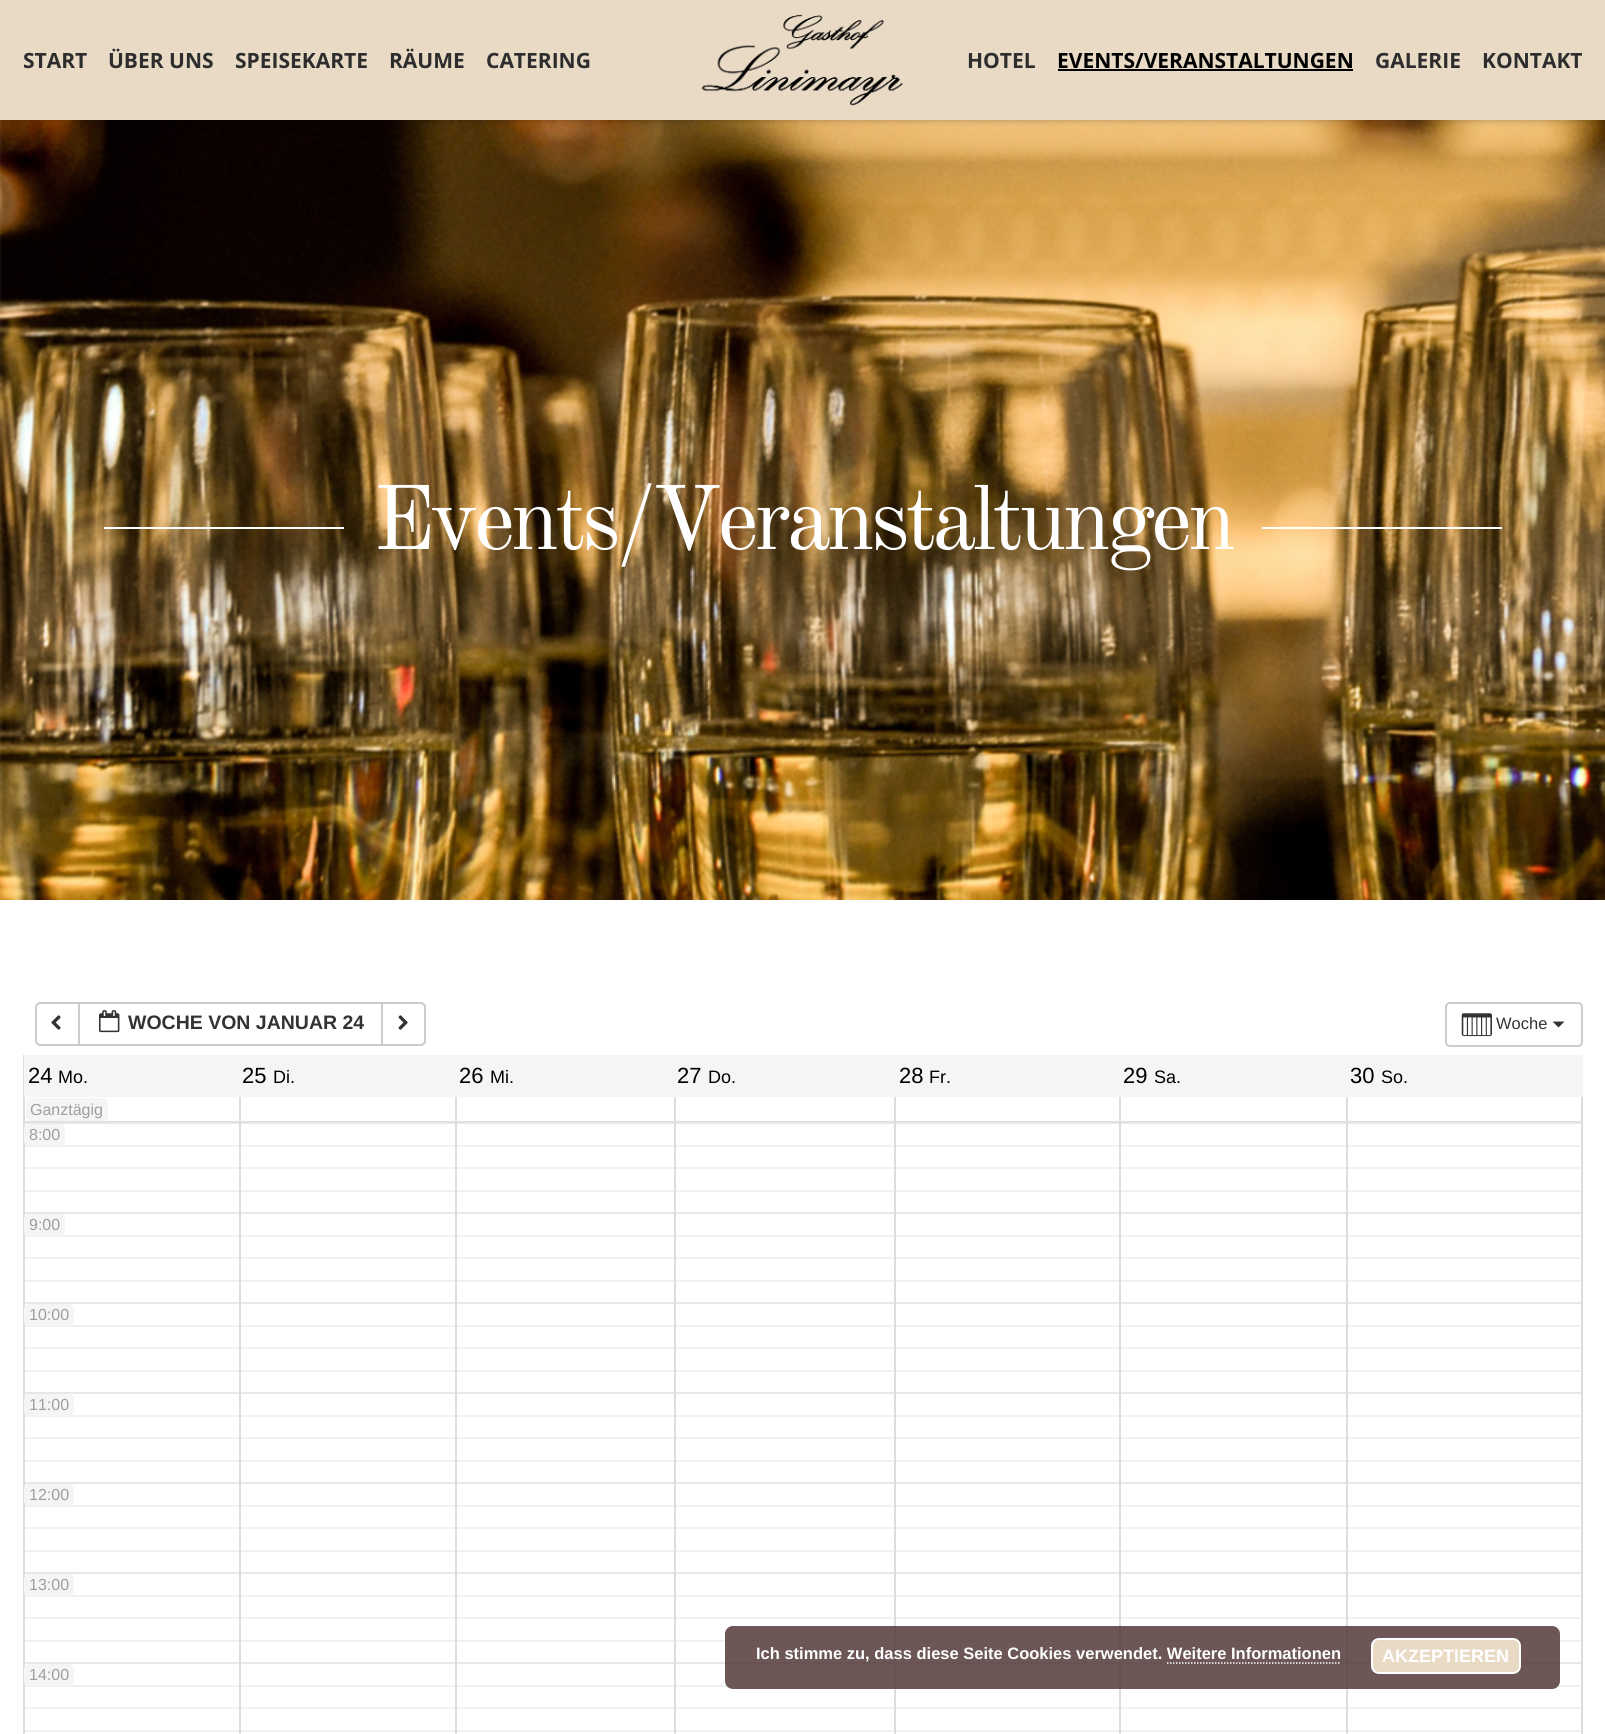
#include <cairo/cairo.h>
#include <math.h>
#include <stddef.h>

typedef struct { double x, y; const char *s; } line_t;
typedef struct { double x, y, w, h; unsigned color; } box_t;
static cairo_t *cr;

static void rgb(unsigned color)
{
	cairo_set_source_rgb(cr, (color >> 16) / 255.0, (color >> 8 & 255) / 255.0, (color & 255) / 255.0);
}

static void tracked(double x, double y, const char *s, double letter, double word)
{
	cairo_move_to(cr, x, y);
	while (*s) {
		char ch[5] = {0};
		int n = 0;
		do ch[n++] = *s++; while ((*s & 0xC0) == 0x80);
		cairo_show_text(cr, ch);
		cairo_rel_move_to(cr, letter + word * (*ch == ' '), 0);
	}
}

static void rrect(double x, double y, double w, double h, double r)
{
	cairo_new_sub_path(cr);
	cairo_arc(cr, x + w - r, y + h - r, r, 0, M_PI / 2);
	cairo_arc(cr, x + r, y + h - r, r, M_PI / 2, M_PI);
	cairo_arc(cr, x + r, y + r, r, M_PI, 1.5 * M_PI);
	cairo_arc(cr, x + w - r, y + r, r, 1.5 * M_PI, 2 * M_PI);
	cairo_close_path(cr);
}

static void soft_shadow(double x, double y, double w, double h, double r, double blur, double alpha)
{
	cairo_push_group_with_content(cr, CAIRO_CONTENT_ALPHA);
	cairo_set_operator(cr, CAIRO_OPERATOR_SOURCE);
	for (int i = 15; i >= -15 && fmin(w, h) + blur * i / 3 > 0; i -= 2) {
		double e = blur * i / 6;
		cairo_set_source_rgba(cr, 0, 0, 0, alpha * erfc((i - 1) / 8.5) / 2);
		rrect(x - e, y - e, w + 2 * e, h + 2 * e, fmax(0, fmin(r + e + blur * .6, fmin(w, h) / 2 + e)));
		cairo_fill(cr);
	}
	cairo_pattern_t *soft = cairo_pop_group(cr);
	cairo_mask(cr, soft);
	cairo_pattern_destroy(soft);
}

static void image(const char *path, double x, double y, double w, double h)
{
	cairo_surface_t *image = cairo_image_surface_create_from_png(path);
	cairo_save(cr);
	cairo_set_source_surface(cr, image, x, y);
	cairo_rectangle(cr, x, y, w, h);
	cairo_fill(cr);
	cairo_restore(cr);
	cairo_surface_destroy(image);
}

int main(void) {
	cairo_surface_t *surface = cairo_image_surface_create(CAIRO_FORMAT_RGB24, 1605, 1734);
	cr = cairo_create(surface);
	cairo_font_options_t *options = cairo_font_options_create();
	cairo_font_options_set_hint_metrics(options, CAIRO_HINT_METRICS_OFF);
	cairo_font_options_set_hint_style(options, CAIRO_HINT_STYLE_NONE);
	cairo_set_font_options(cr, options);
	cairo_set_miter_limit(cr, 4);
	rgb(0xffffff);
	cairo_paint(cr);
	image("img/2.png", 0, 120, 1605, 780);
	rgb(0x000000);
	soft_shadow(0, 0, 1605, 120, 0, 4, 0.3);
	rgb(0xe9dac6);
	cairo_rectangle(cr, 0, 0, 1605, 120);
	cairo_fill(cr);
	image("img/1.png", 701, 14, 203, 92);
	{
		static const box_t items[] = {
			{1058, 69, 295, 2, 0x000000},
			{104, 527, 240, 2, 0xffffff},
			{1262, 527, 240, 2, 0xffffff},
		};
		for (size_t i = 0; i < sizeof items / sizeof *items; i++) {
			rgb(items[i].color);
			cairo_rectangle(cr, items[i].x, items[i].y, items[i].w, items[i].h);
			cairo_fill(cr);
		}
	}
	cairo_new_path(cr);
	cairo_move_to(cr, 40, 1003);
	cairo_line_to(cr, 79, 1003);
	cairo_line_to(cr, 79, 1045);
	cairo_line_to(cr, 40, 1045);
	cairo_curve_to(cr, 38, 1045, 36, 1043, 36, 1041);
	cairo_line_to(cr, 36, 1007);
	cairo_curve_to(cr, 36, 1005, 38, 1003, 40, 1003);
	cairo_close_path(cr);
	rgb(0xcccccc);
	cairo_stroke(cr);
	image("img/3.png", 51, 1015, 10, 15);
	cairo_rectangle(cr, 79, 1003, 303, 42);
	cairo_stroke(cr);
	image("img/4.png", 99, 1010, 21, 23);
	rgb(0xffffff);
	cairo_new_path(cr);
	cairo_move_to(cr, 382, 1003);
	cairo_line_to(cr, 421, 1003);
	cairo_curve_to(cr, 423, 1003, 425, 1005, 425, 1007);
	cairo_line_to(cr, 425, 1041);
	cairo_curve_to(cr, 425, 1043, 423, 1045, 421, 1045);
	cairo_line_to(cr, 382, 1045);
	cairo_close_path(cr);
	cairo_fill_preserve(cr);
	rgb(0xcccccc);
	cairo_stroke(cr);
	image("img/5.png", 398, 1015, 10, 15);
	rrect(1446, 1003, 136, 43, 4);
	cairo_stroke(cr);
	image("img/6.png", 1461, 1013, 31, 24);
	rgb(0x333333);
	cairo_new_path(cr);
	cairo_move_to(cr, 1552.5, 1021.5);
	cairo_line_to(cr, 1564.5, 1021.5);
	cairo_line_to(cr, 1558.5, 1027.5);
	cairo_close_path(cr);
	cairo_fill(cr);
	{
		static const box_t items[] = {
			{1581, 1097, 2, 25, 0xdddddd},
			{23, 1055, 2, 67, 0xdddddd},
			{1346, 1121, 237, 1, 0xdddddd},
			{1346, 1095, 2, 27, 0xdddddd},
			{1119, 1121, 228, 1, 0xdddddd},
			{1119, 1095, 2, 27, 0xdddddd},
			{894, 1121, 227, 1, 0xdddddd},
			{894, 1095, 2, 27, 0xdddddd},
			{674, 1121, 222, 1, 0xdddddd},
			{674, 1095, 2, 27, 0xdddddd},
			{455, 1121, 220, 1, 0xdddddd},
			{455, 1095, 2, 27, 0xdddddd},
			{239, 1121, 217, 1, 0xdddddd},
			{239, 1095, 2, 27, 0xdddddd},
			{24, 1055, 1559, 42, 0xf5f5f5},
			{23, 1121, 217, 1, 0xdddddd},
		};
		for (size_t i = 0; i < sizeof items / sizeof *items; i++) {
			rgb(items[i].color);
			cairo_rectangle(cr, items[i].x, items[i].y, items[i].w, items[i].h);
			cairo_fill(cr);
		}
	}
	rgb(0xf5f5f5);
	rrect(26, 1098, 82, 23, 5);
	cairo_fill(cr);
	{
		static const box_t items[] = {
			{23, 1730, 1560, 2, 0xf1f1f1},
			{23, 1707, 1560, 2, 0xf1f1f1},
			{23, 1685, 1560, 2, 0xf1f1f1},
			{23, 1662, 1560, 2, 0xe7e7e7},
			{23, 1640, 1560, 2, 0xf1f1f1},
			{23, 1617, 1560, 2, 0xf1f1f1},
			{23, 1595, 1560, 2, 0xf1f1f1},
			{23, 1572, 1560, 2, 0xe7e7e7},
			{23, 1550, 1560, 2, 0xf1f1f1},
			{23, 1527, 1560, 2, 0xf1f1f1},
			{23, 1505, 1560, 2, 0xf1f1f1},
			{23, 1482, 1560, 2, 0xe7e7e7},
			{23, 1460, 1560, 2, 0xf1f1f1},
			{23, 1437, 1560, 2, 0xf1f1f1},
			{23, 1415, 1560, 2, 0xf1f1f1},
			{23, 1392, 1560, 2, 0xe7e7e7},
			{23, 1370, 1560, 2, 0xf1f1f1},
			{23, 1347, 1560, 2, 0xf1f1f1},
			{23, 1325, 1560, 2, 0xf1f1f1},
			{23, 1302, 1560, 2, 0xe7e7e7},
			{23, 1280, 1560, 2, 0xf1f1f1},
			{23, 1257, 1560, 2, 0xf1f1f1},
			{23, 1235, 1560, 2, 0xf1f1f1},
			{23, 1212, 1560, 2, 0xe7e7e7},
			{23, 1190, 1560, 2, 0xf1f1f1},
			{23, 1167, 1560, 2, 0xf1f1f1},
			{23, 1145, 1560, 2, 0xf1f1f1},
			{23, 1122, 1560, 2, 0xe7e7e7},
			{1581, 1122, 2, 612, 0xdddddd},
			{23, 1122, 2, 612, 0xdddddd},
		};
		for (size_t i = 0; i < sizeof items / sizeof *items; i++) {
			rgb(items[i].color);
			cairo_rectangle(cr, items[i].x, items[i].y, items[i].w, items[i].h);
			cairo_fill(cr);
		}
	}
	rgb(0xf5f5f5);
	rrect(24, 1124, 41, 22, 5);
	cairo_fill(cr);
	rrect(24, 1214, 41, 22, 5);
	cairo_fill(cr);
	rrect(24, 1304, 50, 22, 5);
	cairo_fill(cr);
	rrect(24, 1394, 50, 22, 5);
	cairo_fill(cr);
	rrect(24, 1484, 50, 22, 5);
	cairo_fill(cr);
	rrect(24, 1574, 50, 22, 5);
	cairo_fill(cr);
	rrect(24, 1664, 50, 22, 5);
	cairo_fill(cr);
	{
		static const box_t items[] = {
			{239, 1122, 2, 612, 0xdddddd},
			{455, 1122, 2, 612, 0xdddddd},
			{674, 1122, 2, 612, 0xdddddd},
			{894, 1122, 2, 612, 0xdddddd},
			{1119, 1122, 2, 612, 0xdddddd},
			{1346, 1122, 2, 612, 0xdddddd},
		};
		for (size_t i = 0; i < sizeof items / sizeof *items; i++) {
			rgb(items[i].color);
			cairo_rectangle(cr, items[i].x, items[i].y, items[i].w, items[i].h);
			cairo_fill(cr);
		}
	}
	cairo_set_source_rgba(cr, 0.325, 0.224, 0.224, 0.85);
	rrect(725, 1626, 835, 63, 8);
	cairo_fill(cr);
	rgb(0xe9dac6);
	rrect(1372, 1639, 148, 34, 7);
	cairo_fill_preserve(cr);
	rgb(0xffffff);
	cairo_stroke(cr);
	cairo_new_path(cr);
	cairo_move_to(cr, 1167, 1663);
	cairo_line_to(cr, 1341, 1663);
	cairo_set_line_width(cr, 1.5);
	cairo_set_dash(cr, (double[]){1.5, 1.5}, 2, 0);
	cairo_stroke(cr);
	cairo_select_font_face(cr, "Open Sans", CAIRO_FONT_SLANT_NORMAL, CAIRO_FONT_WEIGHT_BOLD);
	cairo_set_font_size(cr, 21);
	rgb(0x2d2d2d);
	{
		static const line_t items[] = {
			{23, 68, "START"},
			{108, 68, "ÜBER UNS"},
			{235, 68, "SPEISEKARTE"},
			{389, 68, "RÄUME"},
			{486, 68, "CATERING"},
			{967, 68, "HOTEL"},
		};
		for (size_t i = 0; i < sizeof items / sizeof *items; i++) {
			cairo_move_to(cr, items[i].x, items[i].y);
			cairo_show_text(cr, items[i].s);
		}
	}
	rgb(0x000000);
	cairo_move_to(cr, 1057, 68);
	cairo_show_text(cr, "EVENTS/VERANSTALTUNGEN");
	rgb(0x2d2d2d);
	cairo_move_to(cr, 1375, 68);
	cairo_show_text(cr, "GALERIE");
	cairo_move_to(cr, 1482, 68);
	cairo_show_text(cr, "KONTAKT");
	cairo_select_font_face(cr, "Old Standard TT", CAIRO_FONT_SLANT_NORMAL, CAIRO_FONT_WEIGHT_NORMAL);
	cairo_set_font_size(cr, 90);
	rgb(0xffffff);
	tracked(373, 549, "Events/Veranstaltungen", -4.5, 0);
	cairo_select_font_face(cr, "Liberation Sans", CAIRO_FONT_SLANT_NORMAL, CAIRO_FONT_WEIGHT_BOLD);
	cairo_set_font_size(cr, 19.5);
	rgb(0x333333);
	cairo_move_to(cr, 128, 1029);
	cairo_show_text(cr, "WOCHE VON JANUAR 24");
	cairo_select_font_face(cr, "Liberation Sans", CAIRO_FONT_SLANT_NORMAL, CAIRO_FONT_WEIGHT_NORMAL);
	cairo_set_font_size(cr, 16.5);
	cairo_move_to(cr, 1496, 1029);
	cairo_show_text(cr, "Woche");
	cairo_set_font_size(cr, 22);
	rgb(0x000000);
	cairo_move_to(cr, 28, 1083);
	cairo_show_text(cr, "24");
	cairo_set_font_size(cr, 18);
	cairo_move_to(cr, 58, 1083);
	cairo_show_text(cr, "Mo.");
	cairo_set_font_size(cr, 22);
	cairo_move_to(cr, 242, 1083);
	cairo_show_text(cr, "25");
	cairo_set_font_size(cr, 18);
	cairo_move_to(cr, 273, 1083);
	cairo_show_text(cr, "Di.");
	cairo_set_font_size(cr, 22);
	cairo_move_to(cr, 459, 1083);
	cairo_show_text(cr, "26");
	cairo_set_font_size(cr, 18);
	cairo_move_to(cr, 490, 1083);
	cairo_show_text(cr, "Mi.");
	cairo_set_font_size(cr, 22);
	cairo_move_to(cr, 677, 1083);
	cairo_show_text(cr, "27");
	cairo_set_font_size(cr, 18);
	cairo_move_to(cr, 708, 1083);
	cairo_show_text(cr, "Do.");
	cairo_set_font_size(cr, 22);
	cairo_move_to(cr, 899, 1083);
	cairo_show_text(cr, "28");
	cairo_set_font_size(cr, 18);
	cairo_move_to(cr, 929, 1083);
	cairo_show_text(cr, "Fr.");
	cairo_set_font_size(cr, 22);
	cairo_move_to(cr, 1123, 1083);
	cairo_show_text(cr, "29");
	cairo_set_font_size(cr, 18);
	cairo_move_to(cr, 1154, 1083);
	cairo_show_text(cr, "Sa.");
	cairo_set_font_size(cr, 22);
	cairo_move_to(cr, 1350, 1083);
	cairo_show_text(cr, "30");
	cairo_set_font_size(cr, 18);
	cairo_move_to(cr, 1381, 1083);
	cairo_show_text(cr, "So.");
	cairo_set_font_size(cr, 16);
	rgb(0x9e9e9e);
	{
		static const line_t items[] = {
			{30, 1115, "Ganztägig"},
			{29, 1140, "8:00"},
			{29, 1230, "9:00"},
			{29, 1320, "10:00"},
			{29, 1410, "11:00"},
			{29, 1500, "12:00"},
			{29, 1590, "13:00"},
			{29, 1680, "14:00"},
		};
		for (size_t i = 0; i < sizeof items / sizeof *items; i++) {
			cairo_move_to(cr, items[i].x, items[i].y);
			cairo_show_text(cr, items[i].s);
		}
	}
	cairo_select_font_face(cr, "Liberation Sans", CAIRO_FONT_SLANT_NORMAL, CAIRO_FONT_WEIGHT_BOLD);
	cairo_set_font_size(cr, 16.5);
	rgb(0xffffff);
	cairo_move_to(cr, 756, 1659);
	cairo_show_text(cr, "Ich stimme zu, dass diese Seite Cookies verwendet. Weitere Informationen");
	cairo_set_font_size(cr, 18);
	cairo_move_to(cr, 1382, 1662);
	cairo_show_text(cr, "AKZEPTIEREN");
	cairo_surface_write_to_png(surface, "page.png");
	cairo_font_options_destroy(options);
	cairo_destroy(cr);
	cairo_surface_destroy(surface);
	return 0;
}
